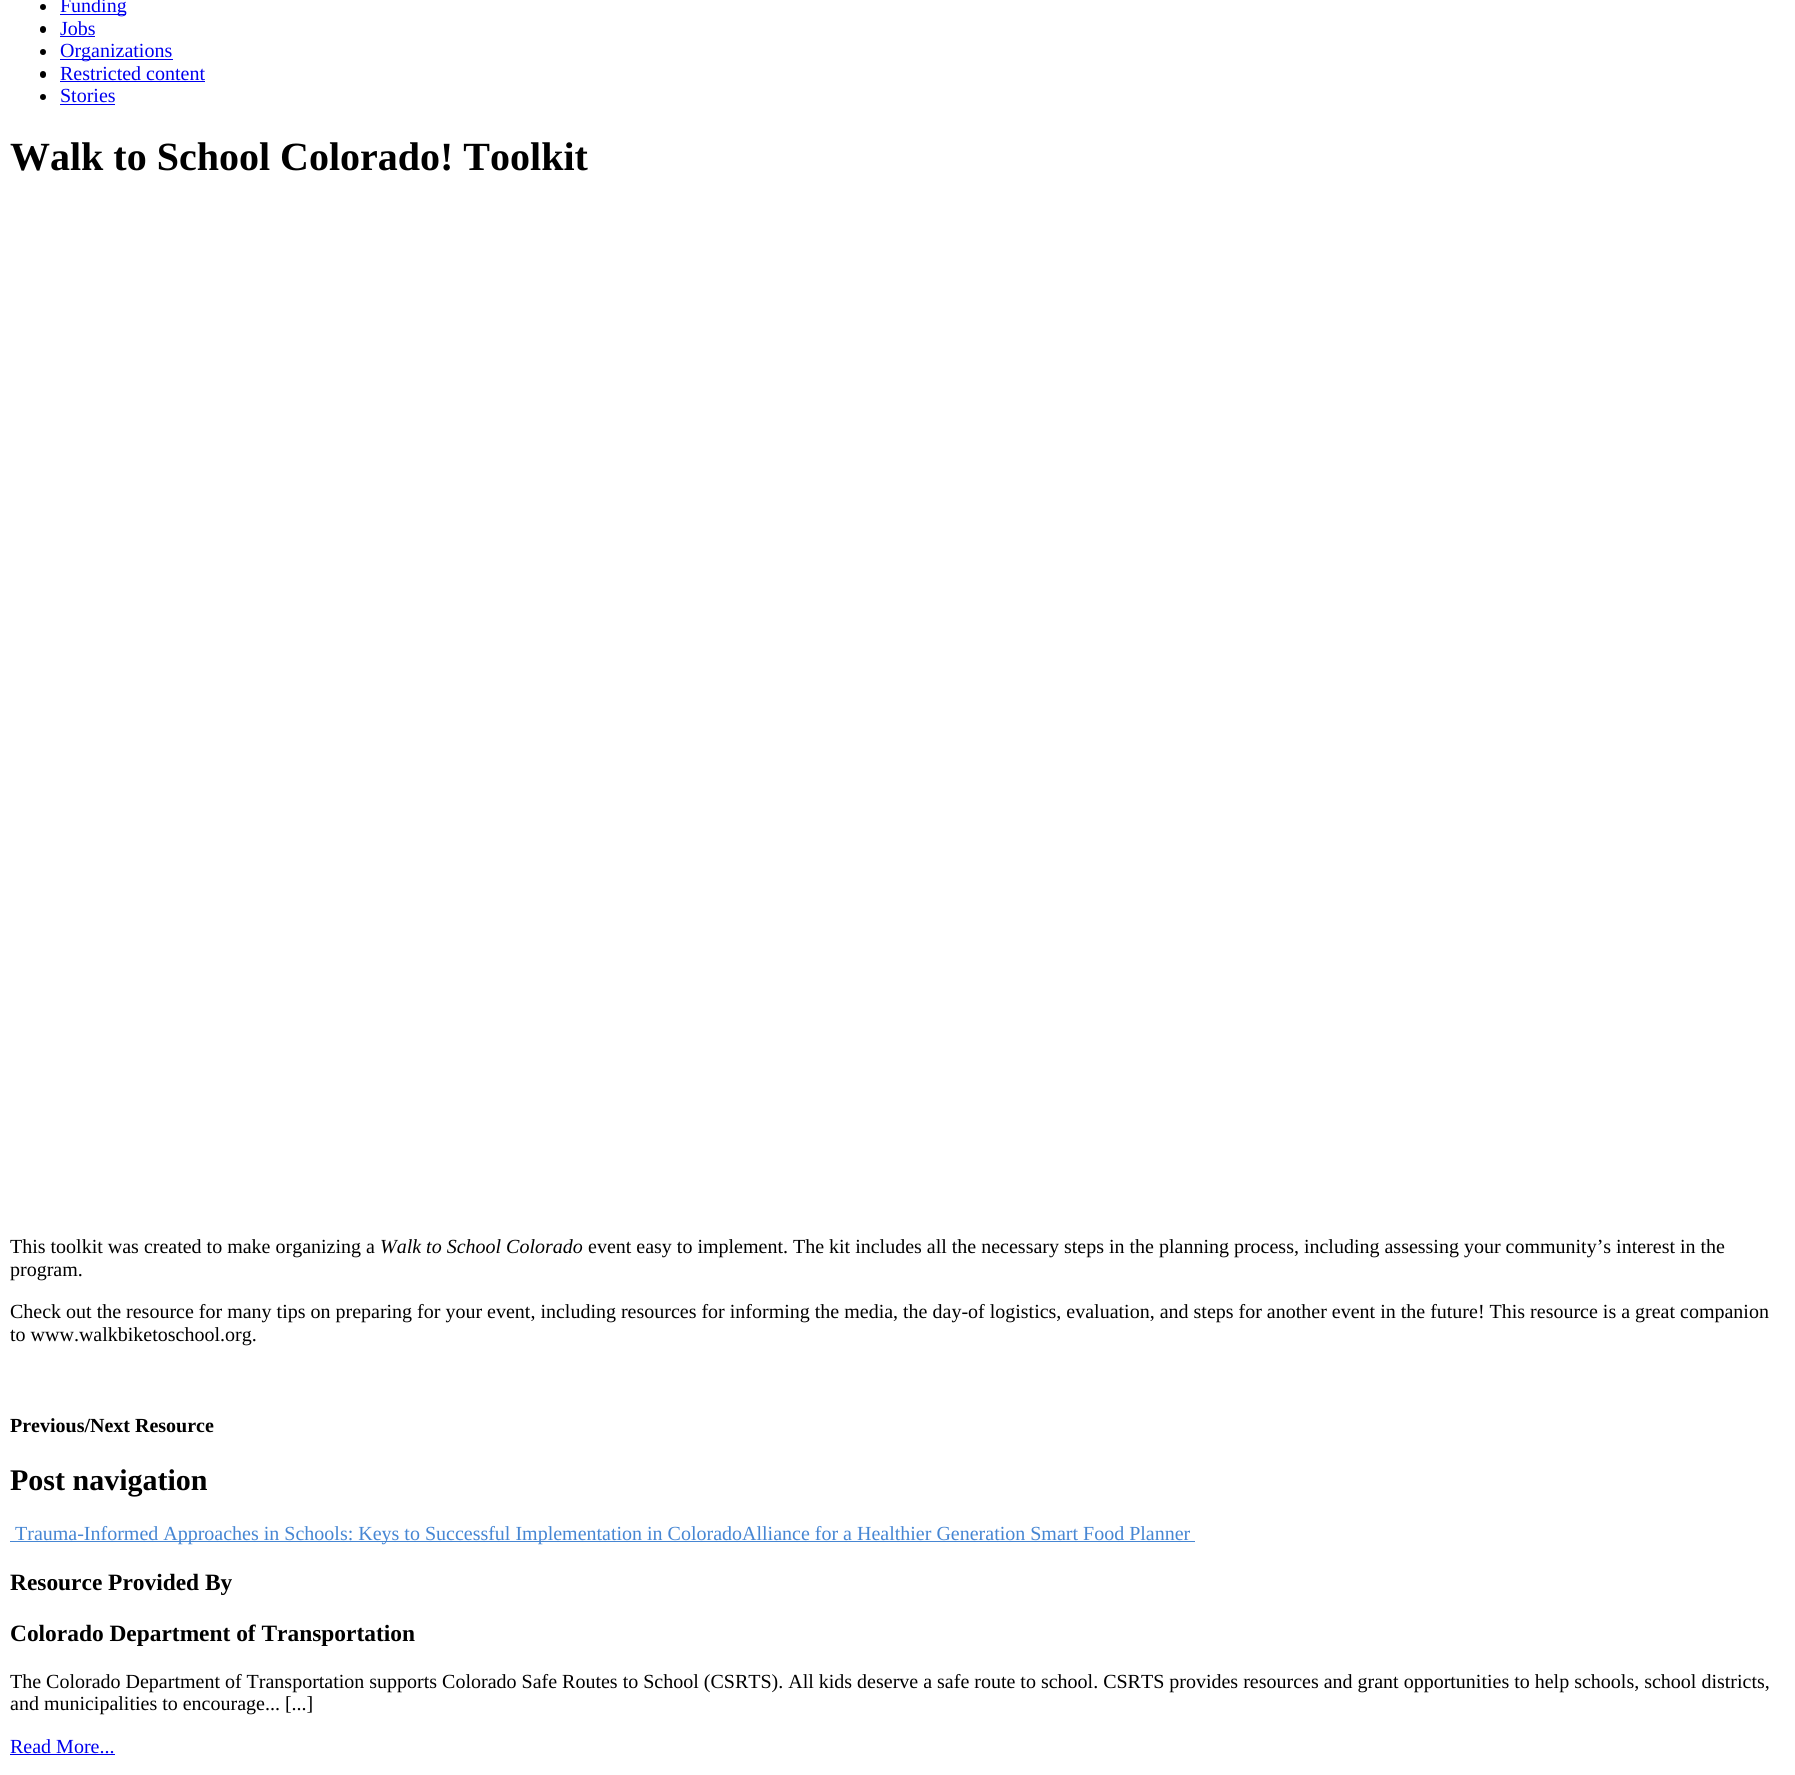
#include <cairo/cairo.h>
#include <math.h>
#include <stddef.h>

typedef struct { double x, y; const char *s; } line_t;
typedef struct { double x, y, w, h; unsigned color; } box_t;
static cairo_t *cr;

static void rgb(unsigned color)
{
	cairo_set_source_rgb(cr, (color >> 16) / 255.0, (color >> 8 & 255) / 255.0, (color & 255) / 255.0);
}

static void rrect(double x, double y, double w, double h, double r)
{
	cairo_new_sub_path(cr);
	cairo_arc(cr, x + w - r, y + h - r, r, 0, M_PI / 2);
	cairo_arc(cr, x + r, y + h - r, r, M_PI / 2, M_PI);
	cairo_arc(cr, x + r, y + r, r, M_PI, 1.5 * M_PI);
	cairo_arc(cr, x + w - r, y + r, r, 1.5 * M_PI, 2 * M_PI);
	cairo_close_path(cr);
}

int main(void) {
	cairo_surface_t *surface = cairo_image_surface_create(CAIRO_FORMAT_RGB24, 1795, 1775);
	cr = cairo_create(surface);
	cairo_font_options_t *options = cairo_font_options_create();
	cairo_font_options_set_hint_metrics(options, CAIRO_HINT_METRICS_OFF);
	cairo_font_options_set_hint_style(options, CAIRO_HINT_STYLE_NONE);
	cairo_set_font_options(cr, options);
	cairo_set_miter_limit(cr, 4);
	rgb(0xffffff);
	cairo_paint(cr);
	rgb(0x000000);
	cairo_arc(cr, 43, 7, 3, 0, 2 * M_PI);
	cairo_fill(cr);
	rgb(0x0000ee);
	cairo_rectangle(cr, 60, 14, 66, 1);
	cairo_fill(cr);
	rgb(0x000000);
	rrect(40, 26, 6, 7, 3);
	cairo_fill(cr);
	rgb(0x0000ee);
	cairo_rectangle(cr, 60, 36, 35, 1);
	cairo_fill(cr);
	rgb(0x000000);
	cairo_arc(cr, 43, 52, 3, 0, 2 * M_PI);
	cairo_fill(cr);
	rgb(0x0000ee);
	cairo_rectangle(cr, 60, 59, 113, 1);
	cairo_fill(cr);
	rgb(0x000000);
	rrect(40, 71, 6, 7, 3);
	cairo_fill(cr);
	rgb(0x0000ee);
	cairo_rectangle(cr, 60, 81, 145, 1);
	cairo_fill(cr);
	rgb(0x000000);
	cairo_arc(cr, 43, 97, 3, 0, 2 * M_PI);
	cairo_fill(cr);
	{
		static const box_t items[] = {
			{60, 104, 55, 1, 0x0000ee},
			{10, 1541, 1185, 1, 0x4686d3},
			{10, 1754, 105, 1, 0x0000ee},
		};
		for (size_t i = 0; i < sizeof items / sizeof *items; i++) {
			rgb(items[i].color);
			cairo_rectangle(cr, items[i].x, items[i].y, items[i].w, items[i].h);
			cairo_fill(cr);
		}
	}
	cairo_select_font_face(cr, "Liberation Serif", CAIRO_FONT_SLANT_NORMAL, CAIRO_FONT_WEIGHT_NORMAL);
	cairo_set_font_size(cr, 20);
	{
		static const line_t items[] = {
			{60, 12, "Funding"},
			{60, 35, "Jobs"},
			{60, 57, "Organizations"},
			{60, 80, "Restricted content"},
			{60, 102, "Stories"},
		};
		for (size_t i = 0; i < sizeof items / sizeof *items; i++) {
			cairo_move_to(cr, items[i].x, items[i].y);
			cairo_show_text(cr, items[i].s);
		}
	}
	cairo_select_font_face(cr, "Liberation Serif", CAIRO_FONT_SLANT_NORMAL, CAIRO_FONT_WEIGHT_BOLD);
	cairo_set_font_size(cr, 40);
	rgb(0x000000);
	cairo_move_to(cr, 10, 170);
	cairo_show_text(cr, "Walk to School Colorado! Toolkit");
	cairo_select_font_face(cr, "Liberation Serif", CAIRO_FONT_SLANT_NORMAL, CAIRO_FONT_WEIGHT_NORMAL);
	cairo_set_font_size(cr, 20);
	cairo_move_to(cr, 10, 1253);
	cairo_show_text(cr, "This toolkit was created to make organizing a");
	cairo_select_font_face(cr, "Liberation Serif", CAIRO_FONT_SLANT_ITALIC, CAIRO_FONT_WEIGHT_NORMAL);
	cairo_move_to(cr, 380, 1253);
	cairo_show_text(cr, "Walk to School Colorado");
	cairo_select_font_face(cr, "Liberation Serif", CAIRO_FONT_SLANT_NORMAL, CAIRO_FONT_WEIGHT_NORMAL);
	{
		static const line_t items[] = {
			{588, 1253, "event easy to implement. The kit includes all the necessary steps in the planning process, including assessing your community’s interest in the"},
			{10, 1276, "program."},
			{10, 1318, "Check out the resource for many tips on preparing for your event, including resources for informing the media, the day-of logistics, evaluation, and steps for another event in the future! This resource is a great companion"},
			{10, 1341, "to www.walkbiketoschool.org."},
		};
		for (size_t i = 0; i < sizeof items / sizeof *items; i++) {
			cairo_move_to(cr, items[i].x, items[i].y);
			cairo_show_text(cr, items[i].s);
		}
	}
	cairo_select_font_face(cr, "Liberation Serif", CAIRO_FONT_SLANT_NORMAL, CAIRO_FONT_WEIGHT_BOLD);
	cairo_move_to(cr, 10, 1432);
	cairo_show_text(cr, "Previous/Next Resource");
	cairo_set_font_size(cr, 30);
	cairo_move_to(cr, 10, 1490);
	cairo_show_text(cr, "Post navigation");
	cairo_select_font_face(cr, "Liberation Serif", CAIRO_FONT_SLANT_NORMAL, CAIRO_FONT_WEIGHT_NORMAL);
	cairo_set_font_size(cr, 20);
	rgb(0x4686d3);
	cairo_move_to(cr, 15, 1540);
	cairo_show_text(cr, "Trauma-Informed Approaches in Schools: Keys to Successful Implementation in ColoradoAlliance for a Healthier Generation Smart Food Planner");
	cairo_select_font_face(cr, "Liberation Serif", CAIRO_FONT_SLANT_NORMAL, CAIRO_FONT_WEIGHT_BOLD);
	cairo_set_font_size(cr, 23.4);
	rgb(0x000000);
	cairo_move_to(cr, 10, 1590);
	cairo_show_text(cr, "Resource Provided By");
	cairo_move_to(cr, 10, 1641);
	cairo_show_text(cr, "Colorado Department of Transportation");
	cairo_select_font_face(cr, "Liberation Serif", CAIRO_FONT_SLANT_NORMAL, CAIRO_FONT_WEIGHT_NORMAL);
	cairo_set_font_size(cr, 20);
	cairo_move_to(cr, 10, 1688);
	cairo_show_text(cr, "The Colorado Department of Transportation supports Colorado Safe Routes to School (CSRTS). All kids deserve a safe route to school. CSRTS provides resources and grant opportunities to help schools, school districts,");
	cairo_move_to(cr, 10, 1710);
	cairo_show_text(cr, "and municipalities to encourage... [...]");
	rgb(0x0000ee);
	cairo_move_to(cr, 10, 1753);
	cairo_show_text(cr, "Read More...");
	cairo_surface_write_to_png(surface, "page.png");
	cairo_font_options_destroy(options);
	cairo_destroy(cr);
	cairo_surface_destroy(surface);
	return 0;
}
